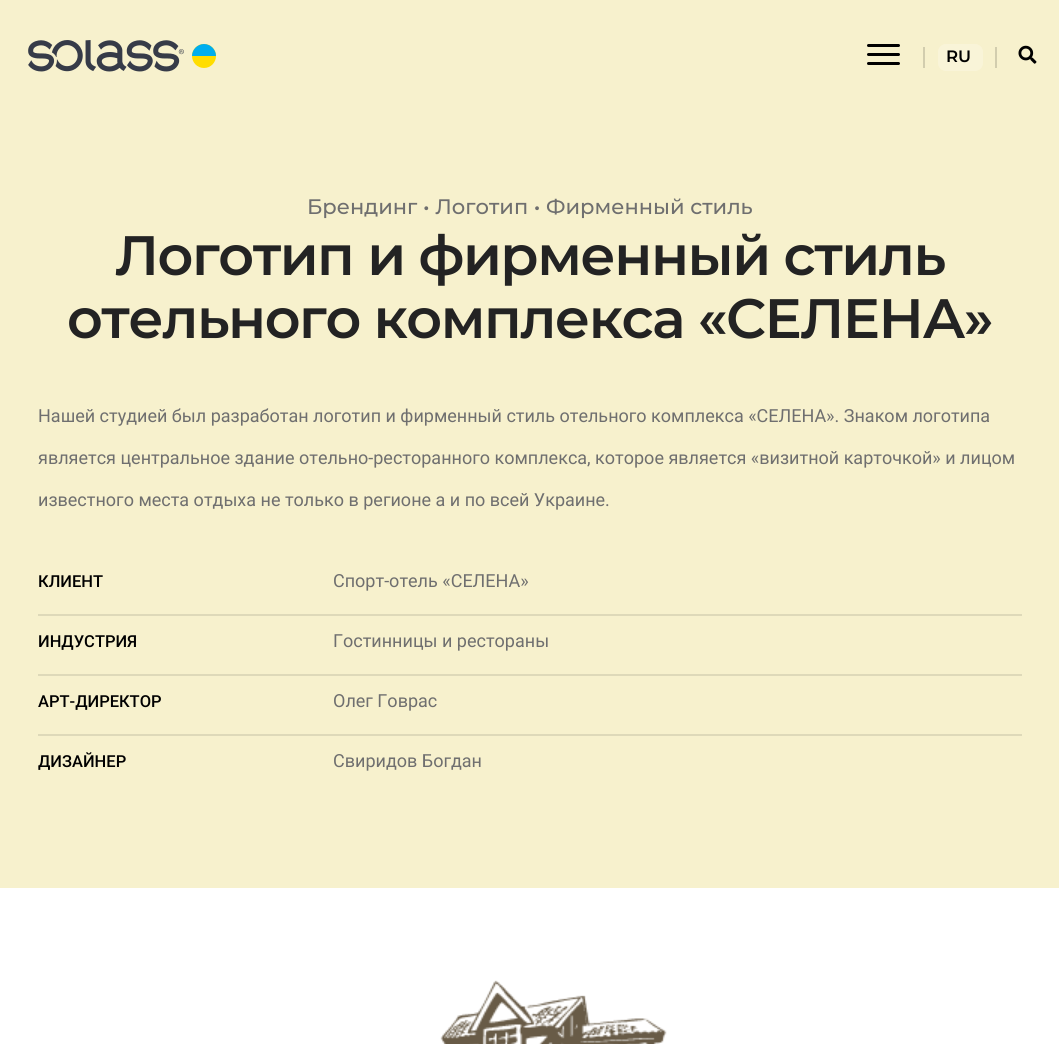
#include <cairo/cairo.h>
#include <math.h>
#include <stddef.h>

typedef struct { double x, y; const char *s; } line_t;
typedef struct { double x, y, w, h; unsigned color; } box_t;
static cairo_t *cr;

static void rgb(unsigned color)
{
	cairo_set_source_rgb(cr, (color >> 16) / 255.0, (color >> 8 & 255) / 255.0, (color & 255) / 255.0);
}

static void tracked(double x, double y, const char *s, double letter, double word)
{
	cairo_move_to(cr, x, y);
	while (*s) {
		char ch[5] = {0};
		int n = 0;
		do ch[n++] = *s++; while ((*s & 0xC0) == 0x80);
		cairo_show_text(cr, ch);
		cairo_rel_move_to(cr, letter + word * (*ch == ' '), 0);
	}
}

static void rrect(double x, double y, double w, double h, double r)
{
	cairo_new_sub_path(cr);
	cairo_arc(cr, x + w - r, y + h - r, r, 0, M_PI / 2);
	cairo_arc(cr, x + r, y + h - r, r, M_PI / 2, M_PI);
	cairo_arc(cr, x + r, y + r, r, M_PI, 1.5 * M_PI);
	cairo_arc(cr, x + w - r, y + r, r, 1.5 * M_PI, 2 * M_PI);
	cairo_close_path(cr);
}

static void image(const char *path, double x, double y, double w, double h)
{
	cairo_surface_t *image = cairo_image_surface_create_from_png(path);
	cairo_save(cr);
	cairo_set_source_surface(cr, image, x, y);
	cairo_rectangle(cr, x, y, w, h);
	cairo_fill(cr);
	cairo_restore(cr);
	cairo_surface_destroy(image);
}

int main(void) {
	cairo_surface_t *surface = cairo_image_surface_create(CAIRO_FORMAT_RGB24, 1059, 1044);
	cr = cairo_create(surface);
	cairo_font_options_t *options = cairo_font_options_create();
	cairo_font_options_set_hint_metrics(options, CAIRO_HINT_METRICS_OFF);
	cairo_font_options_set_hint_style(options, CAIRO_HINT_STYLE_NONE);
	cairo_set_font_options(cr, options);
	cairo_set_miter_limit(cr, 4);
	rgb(0xffffff);
	cairo_paint(cr);
	rgb(0xf7f1cd);
	cairo_rectangle(cr, 0, 0, 1059, 888);
	cairo_fill(cr);
	image("img/1.png", 28, 40, 156, 32);
	rgb(0xffdd00);
	cairo_arc(cr, 204, 56, 12, 0, 2 * M_PI);
	cairo_fill(cr);
	rgb(0x00aeef);
	cairo_new_path(cr);
	cairo_move_to(cr, 204, 44);
	cairo_curve_to(cr, 210.5, 44, 216, 49.5, 216, 56);
	cairo_line_to(cr, 192, 56);
	cairo_curve_to(cr, 192, 49.5, 197.5, 44, 204, 44);
	cairo_close_path(cr);
	cairo_fill(cr);
	rgb(0x000000);
	rrect(867, 44, 33, 3, 1.5);
	cairo_fill(cr);
	rrect(867, 53, 33, 3, 1.5);
	cairo_fill(cr);
	rrect(867, 62, 33, 3, 1.5);
	cairo_fill(cr);
	rgb(0xd2cdae);
	cairo_rectangle(cr, 923, 47, 2, 21);
	cairo_fill(cr);
	rgb(0xf9f4d8);
	rrect(938, 44, 45, 27, 8);
	cairo_fill(cr);
	rgb(0xd2cdae);
	cairo_rectangle(cr, 995, 47, 2, 21);
	cairo_fill(cr);
	image("img/2.png", 1018, 45, 19, 19);
	{
		static const box_t items[] = {
			{38, 614, 984, 2, 0xded9b9},
			{38, 674, 984, 2, 0xded9b9},
			{38, 734, 984, 2, 0xded9b9},
		};
		for (size_t i = 0; i < sizeof items / sizeof *items; i++) {
			rgb(items[i].color);
			cairo_rectangle(cr, items[i].x, items[i].y, items[i].w, items[i].h);
			cairo_fill(cr);
		}
	}
	image("img/3.png", 440, 980, 227, 64);
	cairo_select_font_face(cr, "Montserrat SemiBold", CAIRO_FONT_SLANT_NORMAL, CAIRO_FONT_WEIGHT_NORMAL);
	cairo_set_font_size(cr, 16.5);
	rgb(0x000000);
	cairo_move_to(cr, 946, 62);
	cairo_show_text(cr, "RU");
	cairo_select_font_face(cr, "Montserrat Medium", CAIRO_FONT_SLANT_NORMAL, CAIRO_FONT_WEIGHT_NORMAL);
	cairo_set_font_size(cr, 21);
	rgb(0x6f6f6f);
	cairo_move_to(cr, 307, 214);
	cairo_show_text(cr, "Брендинг • Логотип • Фирменный стиль");
	cairo_select_font_face(cr, "Montserrat SemiBold", CAIRO_FONT_SLANT_NORMAL, CAIRO_FONT_WEIGHT_NORMAL);
	cairo_set_font_size(cr, 55.5);
	rgb(0x232323);
	tracked(115, 275, "Логотип и фирменный стиль", -1.5, 0);
	tracked(67, 338, "отельного комплекса «СЕЛЕНА»", -1.5, 0);
	cairo_select_font_face(cr, "Roboto", CAIRO_FONT_SLANT_NORMAL, CAIRO_FONT_WEIGHT_NORMAL);
	cairo_set_font_size(cr, 18);
	rgb(0x6f6f6f);
	{
		static const line_t items[] = {
			{38, 422, "Нашей студией был разработан логотип и фирменный стиль отельного комплекса «СЕЛЕНА». Знаком логотипа"},
			{38, 464, "является центральное здание отельно-ресторанного комплекса, которое является «визитной карточкой» и лицом"},
			{38, 506, "известного места отдыха не только в регионе а и по всей Украине."},
		};
		for (size_t i = 0; i < sizeof items / sizeof *items; i++) {
			cairo_move_to(cr, items[i].x, items[i].y);
			cairo_show_text(cr, items[i].s);
		}
	}
	cairo_select_font_face(cr, "Roboto Medium", CAIRO_FONT_SLANT_NORMAL, CAIRO_FONT_WEIGHT_NORMAL);
	cairo_set_font_size(cr, 16.5);
	rgb(0x000000);
	cairo_move_to(cr, 38, 587);
	cairo_show_text(cr, "КЛИЕНТ");
	cairo_select_font_face(cr, "Roboto", CAIRO_FONT_SLANT_NORMAL, CAIRO_FONT_WEIGHT_NORMAL);
	cairo_set_font_size(cr, 18);
	rgb(0x6f6f6f);
	cairo_move_to(cr, 333, 587);
	cairo_show_text(cr, "Спорт-отель «СЕЛЕНА»");
	cairo_select_font_face(cr, "Roboto Medium", CAIRO_FONT_SLANT_NORMAL, CAIRO_FONT_WEIGHT_NORMAL);
	cairo_set_font_size(cr, 16.5);
	rgb(0x000000);
	cairo_move_to(cr, 38, 647);
	cairo_show_text(cr, "ИНДУСТРИЯ");
	cairo_select_font_face(cr, "Roboto", CAIRO_FONT_SLANT_NORMAL, CAIRO_FONT_WEIGHT_NORMAL);
	cairo_set_font_size(cr, 18);
	rgb(0x6f6f6f);
	cairo_move_to(cr, 333, 647);
	cairo_show_text(cr, "Гостинницы и рестораны");
	cairo_select_font_face(cr, "Roboto Medium", CAIRO_FONT_SLANT_NORMAL, CAIRO_FONT_WEIGHT_NORMAL);
	cairo_set_font_size(cr, 16.5);
	rgb(0x000000);
	cairo_move_to(cr, 38, 707);
	cairo_show_text(cr, "АРТ-ДИРЕКТОР");
	cairo_select_font_face(cr, "Roboto", CAIRO_FONT_SLANT_NORMAL, CAIRO_FONT_WEIGHT_NORMAL);
	cairo_set_font_size(cr, 18);
	rgb(0x6f6f6f);
	cairo_move_to(cr, 333, 707);
	cairo_show_text(cr, "Олег Говрас");
	cairo_select_font_face(cr, "Roboto Medium", CAIRO_FONT_SLANT_NORMAL, CAIRO_FONT_WEIGHT_NORMAL);
	cairo_set_font_size(cr, 16.5);
	rgb(0x000000);
	cairo_move_to(cr, 38, 767);
	cairo_show_text(cr, "ДИЗАЙНЕР");
	cairo_select_font_face(cr, "Roboto", CAIRO_FONT_SLANT_NORMAL, CAIRO_FONT_WEIGHT_NORMAL);
	cairo_set_font_size(cr, 18);
	rgb(0x6f6f6f);
	cairo_move_to(cr, 333, 767);
	cairo_show_text(cr, "Свиридов Богдан");
	cairo_surface_write_to_png(surface, "page.png");
	cairo_font_options_destroy(options);
	cairo_destroy(cr);
	cairo_surface_destroy(surface);
	return 0;
}
